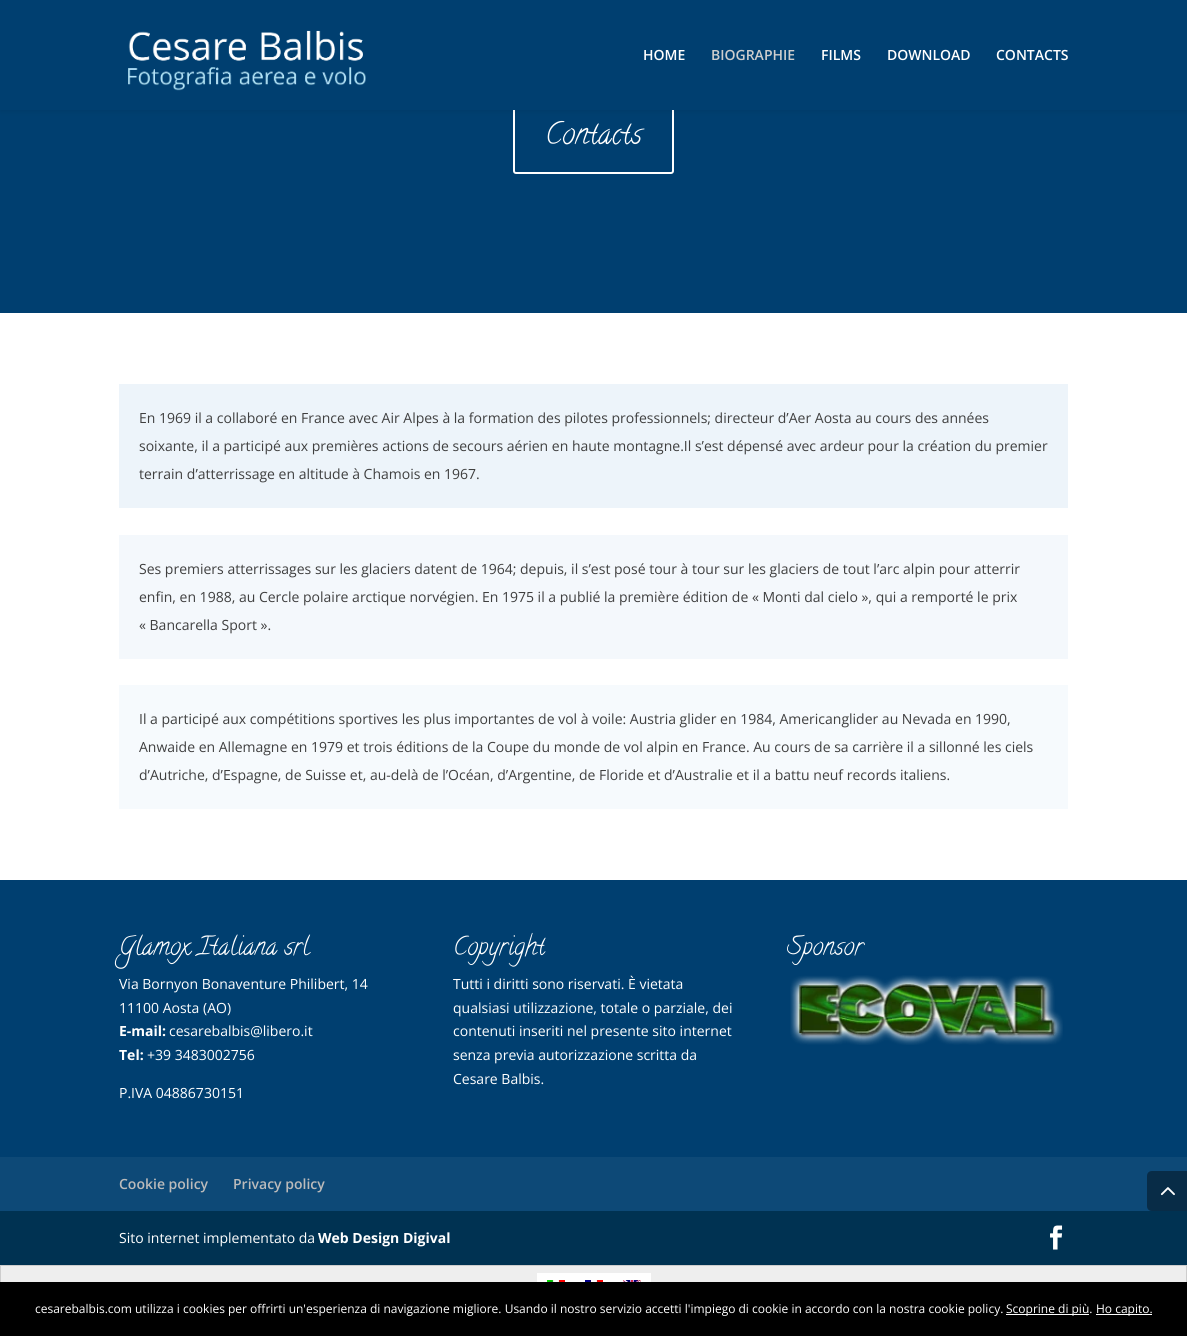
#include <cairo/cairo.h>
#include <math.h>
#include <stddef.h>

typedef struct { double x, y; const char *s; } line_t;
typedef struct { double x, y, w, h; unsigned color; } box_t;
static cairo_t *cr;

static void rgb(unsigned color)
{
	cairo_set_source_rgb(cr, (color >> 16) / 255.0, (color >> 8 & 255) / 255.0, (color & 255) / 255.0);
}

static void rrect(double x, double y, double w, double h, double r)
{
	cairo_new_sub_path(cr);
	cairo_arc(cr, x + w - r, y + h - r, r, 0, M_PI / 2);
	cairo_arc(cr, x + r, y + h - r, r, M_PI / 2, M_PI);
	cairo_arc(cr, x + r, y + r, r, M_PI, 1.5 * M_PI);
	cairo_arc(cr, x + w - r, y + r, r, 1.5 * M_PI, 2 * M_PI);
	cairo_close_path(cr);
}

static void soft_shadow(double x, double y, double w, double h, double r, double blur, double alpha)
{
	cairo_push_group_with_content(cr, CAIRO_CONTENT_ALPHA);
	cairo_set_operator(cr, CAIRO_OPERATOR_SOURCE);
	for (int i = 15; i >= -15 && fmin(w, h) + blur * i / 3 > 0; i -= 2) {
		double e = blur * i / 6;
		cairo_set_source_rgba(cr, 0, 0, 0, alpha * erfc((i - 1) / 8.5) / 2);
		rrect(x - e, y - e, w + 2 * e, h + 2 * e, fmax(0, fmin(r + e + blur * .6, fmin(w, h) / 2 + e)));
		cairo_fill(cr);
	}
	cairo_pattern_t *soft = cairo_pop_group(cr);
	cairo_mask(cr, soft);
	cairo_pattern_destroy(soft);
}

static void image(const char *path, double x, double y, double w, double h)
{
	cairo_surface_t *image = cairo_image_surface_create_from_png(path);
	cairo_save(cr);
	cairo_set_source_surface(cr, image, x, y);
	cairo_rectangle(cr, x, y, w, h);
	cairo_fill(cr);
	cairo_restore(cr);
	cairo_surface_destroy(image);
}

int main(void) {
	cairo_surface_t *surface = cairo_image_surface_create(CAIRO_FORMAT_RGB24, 1187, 1336);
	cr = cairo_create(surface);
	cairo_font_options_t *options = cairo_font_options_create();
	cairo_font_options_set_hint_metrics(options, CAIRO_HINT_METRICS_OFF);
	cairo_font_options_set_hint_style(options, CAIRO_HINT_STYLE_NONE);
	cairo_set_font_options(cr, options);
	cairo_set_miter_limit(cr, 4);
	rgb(0xffffff);
	cairo_paint(cr);
	rgb(0x003f70);
	cairo_rectangle(cr, 0, 110, 1187, 203);
	cairo_fill(cr);
	rrect(514, 102, 159, 71, 2);
	rgb(0xffffff);
	cairo_stroke(cr);
	rgb(0x000000);
	soft_shadow(0, 0, 1187, 110, 0, 3.5, 0.1);
	rgb(0x003f70);
	cairo_rectangle(cr, 0, 0, 1187, 110);
	cairo_fill(cr);
	image("img/1.png", 128, 30, 238, 61);
	{
		static const box_t items[] = {
			{119, 384, 949, 124, 0xedf4fa},
			{119, 535, 949, 124, 0xf4f8fc},
			{119, 685, 949, 124, 0xf6fafd},
			{0, 880, 1187, 277, 0x003f70},
		};
		for (size_t i = 0; i < sizeof items / sizeof *items; i++) {
			rgb(items[i].color);
			cairo_rectangle(cr, items[i].x, items[i].y, items[i].w, items[i].h);
			cairo_fill(cr);
		}
	}
	image("img/2.png", 790, 975, 273, 70);
	rgb(0x0d4977);
	cairo_rectangle(cr, 0, 1157, 1187, 54);
	cairo_fill(cr);
	rgb(0x003252);
	cairo_rectangle(cr, 0, 1211, 1187, 54);
	cairo_fill(cr);
	image("img/3.png", 1050, 1225, 13, 25);
	rgb(0x082c47);
	cairo_new_path(cr);
	cairo_move_to(cr, 1152, 1171);
	cairo_line_to(cr, 1187, 1171);
	cairo_line_to(cr, 1187, 1211);
	cairo_line_to(cr, 1152, 1211);
	cairo_curve_to(cr, 1149, 1211, 1147, 1209, 1147, 1206);
	cairo_line_to(cr, 1147, 1176);
	cairo_curve_to(cr, 1147, 1173, 1149, 1171, 1152, 1171);
	cairo_close_path(cr);
	cairo_fill(cr);
	image("img/4.png", 1160, 1187, 15, 9);
	rgb(0xeeeeee);
	cairo_rectangle(cr, 1, 1266, 1185, 16);
	cairo_fill(cr);
	cairo_rectangle(cr, 0.5, 1265.5, 1186, 40);
	rgb(0xcdcdcd);
	cairo_set_line_width(cr, 1);
	cairo_stroke(cr);
	rgb(0xffffff);
	cairo_rectangle(cr, 537, 1273, 114, 9);
	cairo_fill(cr);
	image("img/5.png", 547, 1280, 18, 2);
	image("img/6.png", 585, 1280, 18, 2);
	image("img/7.png", 623, 1280, 18, 2);
	{
		static const box_t items[] = {
			{0, 1282, 1187, 54, 0x000000},
			{1006, 1314, 83, 1, 0xffffff},
			{1096, 1314, 56, 1, 0xffffff},
		};
		for (size_t i = 0; i < sizeof items / sizeof *items; i++) {
			rgb(items[i].color);
			cairo_rectangle(cr, items[i].x, items[i].y, items[i].w, items[i].h);
			cairo_fill(cr);
		}
	}
	cairo_select_font_face(cr, "Open Sans SemiBold", CAIRO_FONT_SLANT_NORMAL, CAIRO_FONT_WEIGHT_NORMAL);
	cairo_set_font_size(cr, 14);
	cairo_move_to(cr, 643, 60);
	cairo_show_text(cr, "HOME");
	rgb(0xcecece);
	cairo_move_to(cr, 711, 60);
	cairo_show_text(cr, "BIOGRAPHIE");
	rgb(0xffffff);
	{
		static const line_t items[] = {
			{821, 60, "FILMS"},
			{887, 60, "DOWNLOAD"},
			{996, 60, "CONTACTS"},
		};
		for (size_t i = 0; i < sizeof items / sizeof *items; i++) {
			cairo_move_to(cr, items[i].x, items[i].y);
			cairo_show_text(cr, items[i].s);
		}
	}
	cairo_select_font_face(cr, "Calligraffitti", CAIRO_FONT_SLANT_NORMAL, CAIRO_FONT_WEIGHT_NORMAL);
	cairo_set_font_size(cr, 30);
	cairo_move_to(cr, 545, 143);
	cairo_show_text(cr, "Contacts");
	cairo_select_font_face(cr, "Open Sans", CAIRO_FONT_SLANT_NORMAL, CAIRO_FONT_WEIGHT_NORMAL);
	cairo_set_font_size(cr, 14);
	rgb(0x3f3f3f);
	{
		static const line_t items[] = {
			{139, 423, "En 1969 il a collaboré en France avec Air Alpes à la formation des pilotes professionnels; directeur d’Aer Aosta au cours des années"},
			{139, 451, "soixante, il a participé aux premières actions de secours aérien en haute montagne.Il s’est dépensé avec ardeur pour la création du premier"},
			{139, 479, "terrain d’atterrissage en altitude à Chamois en 1967."},
			{139, 574, "Ses premiers atterrissages sur les glaciers datent de 1964; depuis, il s’est posé tour à tour sur les glaciers de tout l’arc alpin pour atterrir"},
			{139, 602, "enfin, en 1988, au Cercle polaire arctique norvégien. En 1975 il a publié la première édition de « Monti dal cielo », qui a remporté le prix"},
			{139, 630, "« Bancarella Sport »."},
			{139, 724, "Il a participé aux compétitions sportives les plus importantes de vol à voile: Austria glider en 1984, Americanglider au Nevada en 1990,"},
			{139, 752, "Anwaide en Allemagne en 1979 et trois éditions de la Coupe du monde de vol alpin en France. Au cours de sa carrière il a sillonné les ciels"},
			{139, 780, "d’Autriche, d’Espagne, de Suisse et, au-delà de l’Océan, d’Argentine, de Floride et d’Australie et il a battu neuf records italiens."},
		};
		for (size_t i = 0; i < sizeof items / sizeof *items; i++) {
			cairo_move_to(cr, items[i].x, items[i].y);
			cairo_show_text(cr, items[i].s);
		}
	}
	cairo_select_font_face(cr, "Calligraffitti", CAIRO_FONT_SLANT_NORMAL, CAIRO_FONT_WEIGHT_NORMAL);
	cairo_set_font_size(cr, 25);
	rgb(0xffffff);
	cairo_move_to(cr, 119, 954);
	cairo_show_text(cr, "Glamox Italiana srl");
	cairo_select_font_face(cr, "Open Sans", CAIRO_FONT_SLANT_NORMAL, CAIRO_FONT_WEIGHT_NORMAL);
	cairo_set_font_size(cr, 14);
	cairo_move_to(cr, 119, 989);
	cairo_show_text(cr, "Via Bornyon Bonaventure Philibert, 14");
	cairo_move_to(cr, 119, 1013);
	cairo_show_text(cr, "11100 Aosta (AO)");
	cairo_select_font_face(cr, "Open Sans", CAIRO_FONT_SLANT_NORMAL, CAIRO_FONT_WEIGHT_BOLD);
	cairo_move_to(cr, 119, 1036);
	cairo_show_text(cr, "E-mail:");
	cairo_select_font_face(cr, "Open Sans", CAIRO_FONT_SLANT_NORMAL, CAIRO_FONT_WEIGHT_NORMAL);
	cairo_move_to(cr, 169, 1036);
	cairo_show_text(cr, "cesarebalbis@libero.it");
	cairo_select_font_face(cr, "Open Sans", CAIRO_FONT_SLANT_NORMAL, CAIRO_FONT_WEIGHT_BOLD);
	cairo_move_to(cr, 119, 1060);
	cairo_show_text(cr, "Tel:");
	cairo_select_font_face(cr, "Open Sans", CAIRO_FONT_SLANT_NORMAL, CAIRO_FONT_WEIGHT_NORMAL);
	cairo_move_to(cr, 147, 1060);
	cairo_show_text(cr, "+39 3483002756");
	cairo_move_to(cr, 119, 1098);
	cairo_show_text(cr, "P.IVA 04886730151");
	cairo_select_font_face(cr, "Calligraffitti", CAIRO_FONT_SLANT_NORMAL, CAIRO_FONT_WEIGHT_NORMAL);
	cairo_set_font_size(cr, 25);
	cairo_move_to(cr, 453, 954);
	cairo_show_text(cr, "Copyright");
	cairo_select_font_face(cr, "Open Sans", CAIRO_FONT_SLANT_NORMAL, CAIRO_FONT_WEIGHT_NORMAL);
	cairo_set_font_size(cr, 14);
	{
		static const line_t items[] = {
			{453, 989, "Tutti i diritti sono riservati. È vietata"},
			{453, 1013, "qualsiasi utilizzazione, totale o parziale, dei"},
			{453, 1036, "contenuti inseriti nel presente sito internet"},
			{453, 1060, "senza previa autorizzazione scritta da"},
			{453, 1084, "Cesare Balbis."},
		};
		for (size_t i = 0; i < sizeof items / sizeof *items; i++) {
			cairo_move_to(cr, items[i].x, items[i].y);
			cairo_show_text(cr, items[i].s);
		}
	}
	cairo_select_font_face(cr, "Calligraffitti", CAIRO_FONT_SLANT_NORMAL, CAIRO_FONT_WEIGHT_NORMAL);
	cairo_set_font_size(cr, 25);
	cairo_move_to(cr, 787, 954);
	cairo_show_text(cr, "Sponsor");
	cairo_select_font_face(cr, "Open Sans SemiBold", CAIRO_FONT_SLANT_NORMAL, CAIRO_FONT_WEIGHT_NORMAL);
	cairo_set_font_size(cr, 14);
	rgb(0xbbbbbb);
	cairo_move_to(cr, 119, 1189);
	cairo_show_text(cr, "Cookie policy");
	cairo_move_to(cr, 233, 1189);
	cairo_show_text(cr, "Privacy policy");
	cairo_select_font_face(cr, "Open Sans", CAIRO_FONT_SLANT_NORMAL, CAIRO_FONT_WEIGHT_NORMAL);
	rgb(0xffffff);
	cairo_move_to(cr, 119, 1243);
	cairo_show_text(cr, "Sito internet implementato da");
	cairo_select_font_face(cr, "Open Sans", CAIRO_FONT_SLANT_NORMAL, CAIRO_FONT_WEIGHT_BOLD);
	cairo_move_to(cr, 318, 1243);
	cairo_show_text(cr, "Web Design Digival");
	cairo_select_font_face(cr, "Open Sans", CAIRO_FONT_SLANT_NORMAL, CAIRO_FONT_WEIGHT_NORMAL);
	cairo_set_font_size(cr, 12);
	{
		static const line_t items[] = {
			{35, 1313, "cesarebalbis.com utilizza i cookies per offrirti un'esperienza di navigazione migliore. Usando il nostro servizio accetti l'impiego di cookie in accordo con la nostra cookie policy."},
			{1006, 1313, "Scoprine di più."},
			{1096, 1313, "Ho capito."},
		};
		for (size_t i = 0; i < sizeof items / sizeof *items; i++) {
			cairo_move_to(cr, items[i].x, items[i].y);
			cairo_show_text(cr, items[i].s);
		}
	}
	cairo_surface_write_to_png(surface, "page.png");
	cairo_font_options_destroy(options);
	cairo_destroy(cr);
	cairo_surface_destroy(surface);
	return 0;
}
